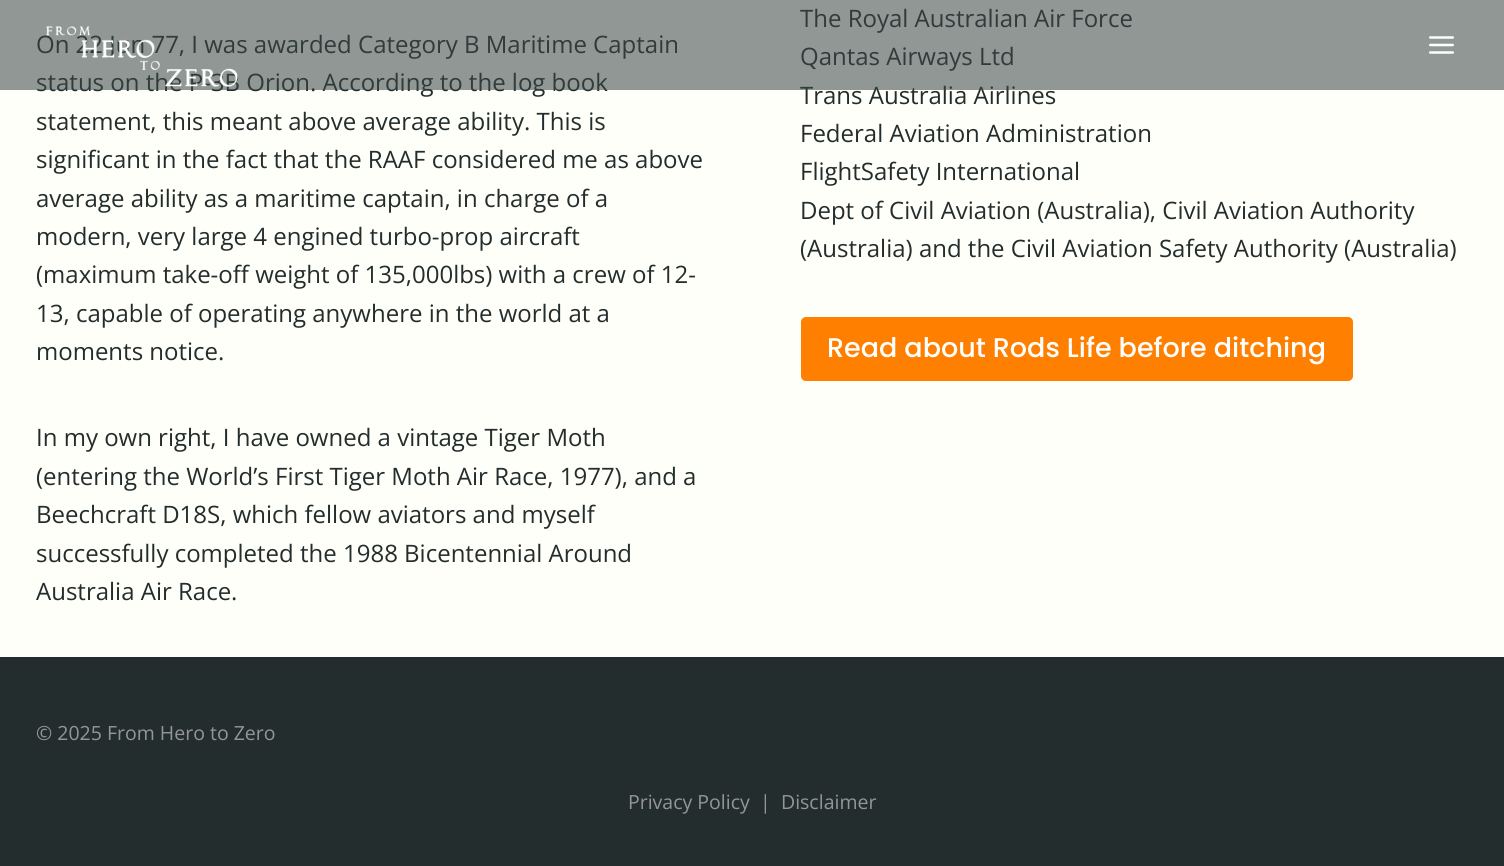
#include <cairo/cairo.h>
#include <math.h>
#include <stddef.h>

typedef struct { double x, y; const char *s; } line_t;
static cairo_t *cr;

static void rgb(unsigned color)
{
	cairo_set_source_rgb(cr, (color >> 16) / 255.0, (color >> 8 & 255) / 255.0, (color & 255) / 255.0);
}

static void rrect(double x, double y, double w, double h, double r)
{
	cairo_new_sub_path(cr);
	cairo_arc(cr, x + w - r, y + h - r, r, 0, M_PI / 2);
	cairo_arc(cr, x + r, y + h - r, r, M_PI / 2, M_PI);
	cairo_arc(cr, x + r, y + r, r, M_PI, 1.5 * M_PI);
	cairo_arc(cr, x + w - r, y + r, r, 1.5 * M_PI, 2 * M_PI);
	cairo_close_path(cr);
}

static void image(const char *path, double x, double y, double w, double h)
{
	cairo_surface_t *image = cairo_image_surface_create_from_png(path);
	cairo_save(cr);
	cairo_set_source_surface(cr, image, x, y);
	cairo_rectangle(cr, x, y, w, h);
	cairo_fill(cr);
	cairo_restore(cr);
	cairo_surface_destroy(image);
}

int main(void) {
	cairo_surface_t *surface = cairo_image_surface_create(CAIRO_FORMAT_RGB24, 1504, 866);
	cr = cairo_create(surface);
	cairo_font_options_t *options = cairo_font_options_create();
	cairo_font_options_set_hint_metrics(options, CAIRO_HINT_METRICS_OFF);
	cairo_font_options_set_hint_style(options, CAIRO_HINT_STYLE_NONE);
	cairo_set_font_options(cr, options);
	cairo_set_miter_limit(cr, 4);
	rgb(0xfffff9);
	cairo_paint(cr);
	rgb(0xff7f00);
	rrect(801, 317, 552, 64, 5);
	cairo_fill(cr);
	rgb(0x242d2d);
	cairo_rectangle(cr, 0, 657, 1504, 209);
	cairo_fill(cr);
	cairo_select_font_face(cr, "Open Sans", CAIRO_FONT_SLANT_NORMAL, CAIRO_FONT_WEIGHT_NORMAL);
	cairo_set_font_size(cr, 24);
	{
		static const line_t items[] = {
			{36, 53, "On 22 Jun 77, I was awarded Category B Maritime Captain"},
			{36, 91, "status on the P-3B Orion. According to the log book"},
			{36, 130, "statement, this meant above average ability. This is"},
			{36, 168, "significant in the fact that the RAAF considered me as above"},
			{36, 207, "average ability as a maritime captain, in charge of a"},
			{36, 245, "modern, very large 4 engined turbo-prop aircraft"},
			{36, 283, "(maximum take-off weight of 135,000lbs) with a crew of 12-"},
			{36, 322, "13, capable of operating anywhere in the world at a"},
			{36, 360, "moments notice."},
			{36, 446, "In my own right, I have owned a vintage Tiger Moth"},
			{36, 485, "(entering the World’s First Tiger Moth Air Race, 1977), and a"},
			{36, 523, "Beechcraft D18S, which fellow aviators and myself"},
			{36, 562, "successfully completed the 1988 Bicentennial Around"},
			{36, 600, "Australia Air Race."},
			{800, 27, "The Royal Australian Air Force"},
			{800, 65, "Qantas Airways Ltd"},
			{800, 104, "Trans Australia Airlines"},
		};
		for (size_t i = 0; i < sizeof items / sizeof *items; i++) {
			cairo_move_to(cr, items[i].x, items[i].y);
			cairo_show_text(cr, items[i].s);
		}
	}
	cairo_set_source_rgba(cr, 0.227, 0.275, 0.275, 0.56);
	cairo_rectangle(cr, 0, 0, 1504, 90);
	cairo_fill(cr);
	image("img/2.png", 1429, 36, 25, 18);
	image("img/1.png", 46, 26, 192, 61);
	rgb(0x242d2d);
	{
		static const line_t items[] = {
			{800, 142, "Federal Aviation Administration"},
			{800, 180, "FlightSafety International"},
			{800, 219, "Dept of Civil Aviation (Australia), Civil Aviation Authority"},
			{800, 257, "(Australia) and the Civil Aviation Safety Authority (Australia)"},
		};
		for (size_t i = 0; i < sizeof items / sizeof *items; i++) {
			cairo_move_to(cr, items[i].x, items[i].y);
			cairo_show_text(cr, items[i].s);
		}
	}
	cairo_select_font_face(cr, "Poppins Medium", CAIRO_FONT_SLANT_NORMAL, CAIRO_FONT_WEIGHT_NORMAL);
	cairo_set_font_size(cr, 27);
	rgb(0xffffff);
	cairo_move_to(cr, 827, 357);
	cairo_show_text(cr, "Read about Rods Life before ditching");
	cairo_select_font_face(cr, "Open Sans", CAIRO_FONT_SLANT_NORMAL, CAIRO_FONT_WEIGHT_NORMAL);
	cairo_set_font_size(cr, 19.5);
	rgb(0x929696);
	{
		static const line_t items[] = {
			{36, 740, "© 2025 From Hero to Zero"},
			{628, 809, "Privacy Policy"},
			{760, 809, "|"},
			{781, 809, "Disclaimer"},
		};
		for (size_t i = 0; i < sizeof items / sizeof *items; i++) {
			cairo_move_to(cr, items[i].x, items[i].y);
			cairo_show_text(cr, items[i].s);
		}
	}
	cairo_surface_write_to_png(surface, "page.png");
	cairo_font_options_destroy(options);
	cairo_destroy(cr);
	cairo_surface_destroy(surface);
	return 0;
}
